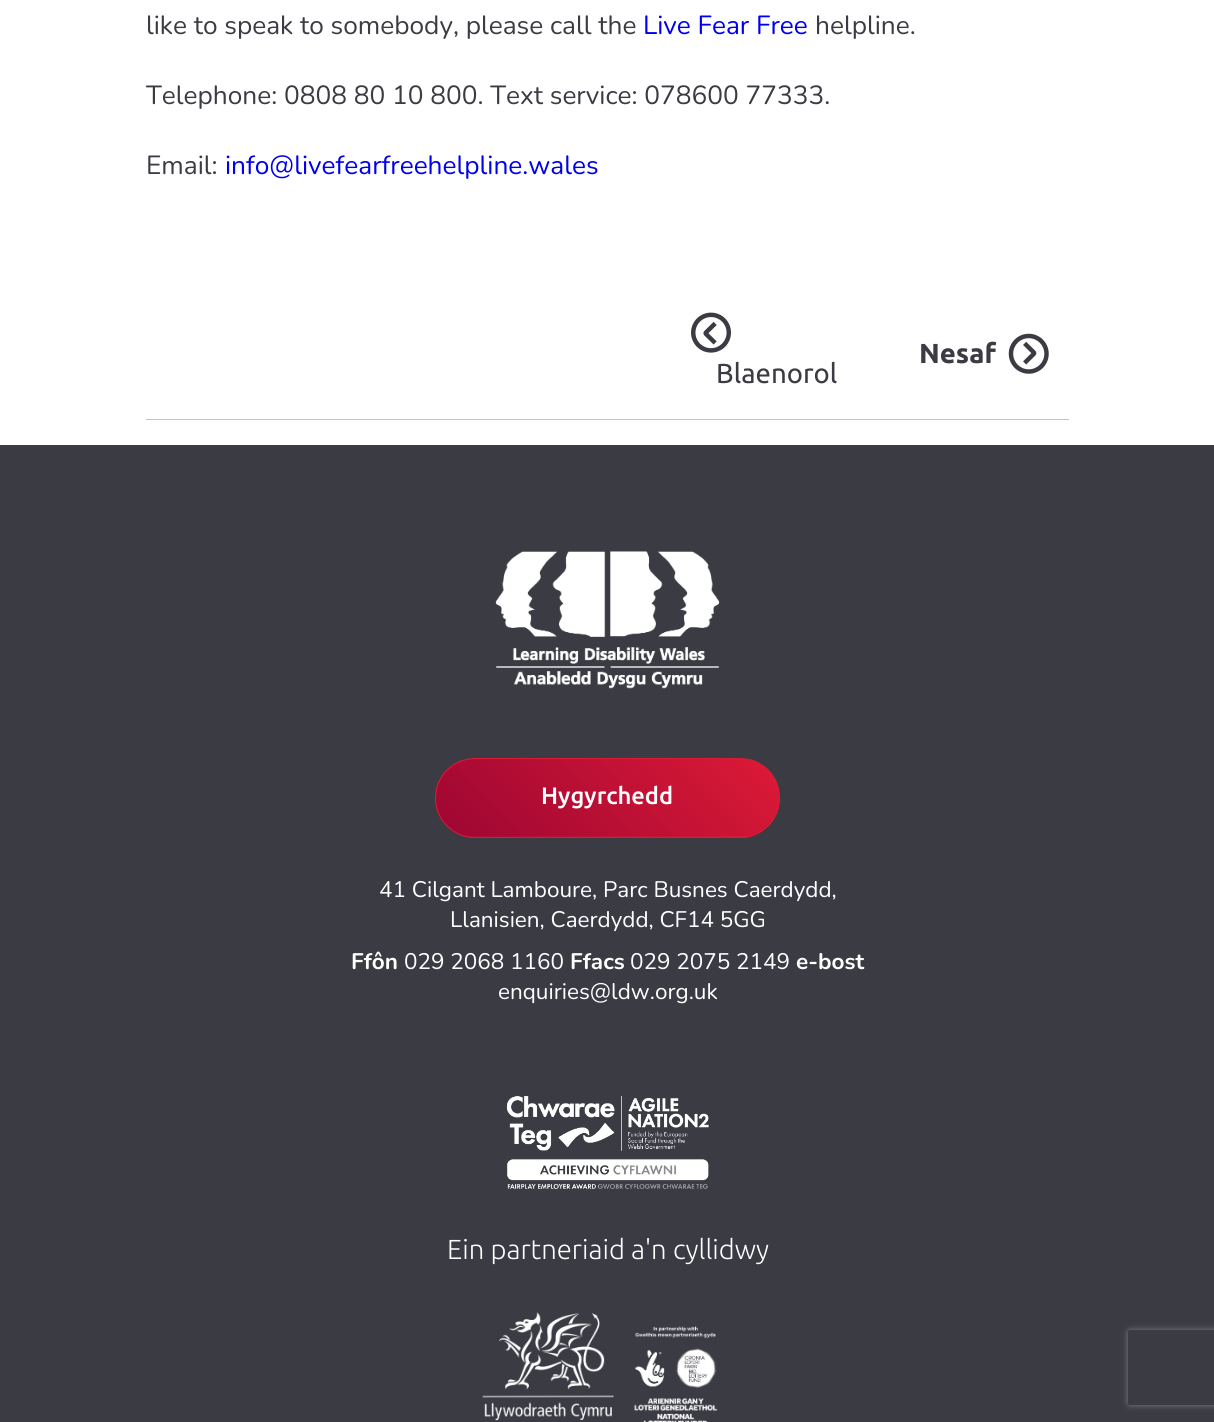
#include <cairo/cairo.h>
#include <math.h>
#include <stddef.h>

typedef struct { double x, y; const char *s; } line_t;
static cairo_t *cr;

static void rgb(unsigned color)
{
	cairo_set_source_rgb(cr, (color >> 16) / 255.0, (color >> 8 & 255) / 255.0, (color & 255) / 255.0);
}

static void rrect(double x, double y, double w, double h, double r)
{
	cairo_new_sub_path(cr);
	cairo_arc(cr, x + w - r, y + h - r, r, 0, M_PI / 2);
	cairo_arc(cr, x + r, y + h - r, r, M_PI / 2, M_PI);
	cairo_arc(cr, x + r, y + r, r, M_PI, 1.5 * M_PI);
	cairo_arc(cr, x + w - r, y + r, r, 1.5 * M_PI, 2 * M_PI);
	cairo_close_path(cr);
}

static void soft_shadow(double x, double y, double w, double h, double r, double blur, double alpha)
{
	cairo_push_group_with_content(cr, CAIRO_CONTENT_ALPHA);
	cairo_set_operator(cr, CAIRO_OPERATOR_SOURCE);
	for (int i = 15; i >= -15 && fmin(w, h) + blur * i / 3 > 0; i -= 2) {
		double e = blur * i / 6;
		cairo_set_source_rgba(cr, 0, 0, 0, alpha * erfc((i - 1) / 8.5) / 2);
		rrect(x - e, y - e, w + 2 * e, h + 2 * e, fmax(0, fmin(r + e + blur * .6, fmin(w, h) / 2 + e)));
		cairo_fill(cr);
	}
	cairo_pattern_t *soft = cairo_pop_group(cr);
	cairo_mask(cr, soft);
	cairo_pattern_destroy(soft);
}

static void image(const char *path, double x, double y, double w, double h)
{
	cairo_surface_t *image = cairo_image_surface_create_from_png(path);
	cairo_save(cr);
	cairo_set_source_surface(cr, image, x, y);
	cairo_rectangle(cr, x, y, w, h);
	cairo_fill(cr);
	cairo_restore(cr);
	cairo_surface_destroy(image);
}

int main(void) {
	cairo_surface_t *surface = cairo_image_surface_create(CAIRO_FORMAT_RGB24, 1214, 1422);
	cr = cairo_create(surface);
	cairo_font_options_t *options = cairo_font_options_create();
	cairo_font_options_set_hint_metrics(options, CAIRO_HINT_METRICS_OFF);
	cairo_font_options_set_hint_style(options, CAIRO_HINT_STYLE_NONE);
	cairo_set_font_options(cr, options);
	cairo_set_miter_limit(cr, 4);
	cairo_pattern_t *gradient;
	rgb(0xffffff);
	cairo_paint(cr);
	rgb(0xc4c4c4);
	cairo_rectangle(cr, 146, 419, 923, 1);
	cairo_fill(cr);
	image("img/1.png", 1008, 333, 41, 41);
	image("img/2.png", 691, 312, 40, 41);
	rgb(0x3b3b44);
	cairo_rectangle(cr, 0, 445, 1214, 977);
	cairo_fill(cr);
	image("img/3.png", 495, 551, 225, 138);
	cairo_save(cr);
	rrect(435, 758, 345, 80, 40);
	cairo_clip(cr);
	gradient = cairo_pattern_create_linear(503, 903, 713, 693);
	cairo_pattern_add_color_stop_rgba(gradient, 0, 0.612, 0.024, 0.2, 1);
	cairo_pattern_add_color_stop_rgba(gradient, 1, 0.867, 0.102, 0.212, 1);
	cairo_set_source(cr, gradient);
	cairo_pattern_destroy(gradient);
	cairo_rectangle(cr, 436, 759, 343, 77);
	cairo_fill(cr);
	gradient = cairo_pattern_create_linear(503, 980, 713, 770);
	cairo_pattern_add_color_stop_rgba(gradient, 0, 0.612, 0.024, 0.2, 1);
	cairo_pattern_add_color_stop_rgba(gradient, 1, 0.867, 0.102, 0.212, 1);
	cairo_set_source(cr, gradient);
	cairo_pattern_destroy(gradient);
	cairo_rectangle(cr, 462, 836, 291, 2);
	cairo_fill(cr);
	cairo_restore(cr);
	rrect(435.5, 758.5, 344, 79, 39.5);
	rgb(0xdd1a36);
	cairo_set_line_width(cr, 1);
	cairo_stroke(cr);
	image("img/4.png", 506, 1095, 203, 94);
	image("img/5.png", 482, 1312, 132, 109);
	image("img/6.png", 634, 1326, 84, 96);
	cairo_save(cr);
	cairo_set_fill_rule(cr, CAIRO_FILL_RULE_EVEN_ODD);
	cairo_new_path(cr);
	cairo_move_to(cr, 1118, 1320);
	cairo_line_to(cr, 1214, 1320);
	cairo_line_to(cr, 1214, 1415);
	cairo_line_to(cr, 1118, 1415);
	cairo_close_path(cr);
	cairo_move_to(cr, 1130.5, 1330);
	cairo_line_to(cr, 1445.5, 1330);
	cairo_curve_to(cr, 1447, 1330, 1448, 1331, 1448, 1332.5);
	cairo_line_to(cr, 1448, 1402.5);
	cairo_curve_to(cr, 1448, 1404, 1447, 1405, 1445.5, 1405);
	cairo_line_to(cr, 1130.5, 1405);
	cairo_curve_to(cr, 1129, 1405, 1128, 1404, 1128, 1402.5);
	cairo_line_to(cr, 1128, 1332.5);
	cairo_curve_to(cr, 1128, 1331, 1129, 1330, 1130.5, 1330);
	cairo_close_path(cr);
	cairo_clip(cr);
	rgb(0x808080);
	soft_shadow(1128, 1330, 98, 75, 2.5, 3, 1);
	cairo_restore(cr);
	cairo_select_font_face(cr, "Nunito", CAIRO_FONT_SLANT_NORMAL, CAIRO_FONT_WEIGHT_NORMAL);
	cairo_set_font_size(cr, 26.25);
	rgb(0x3b3b44);
	cairo_move_to(cr, 146, 34);
	cairo_show_text(cr, "like to speak to somebody, please call the");
	rgb(0x0000ee);
	cairo_move_to(cr, 643, 34);
	cairo_show_text(cr, "Live Fear Free");
	rgb(0x3b3b44);
	{
		static const line_t items[] = {
			{815, 34, "helpline."},
			{146, 104, "Telephone: 0808 80 10 800. Text service: 078600 77333."},
			{146, 174, "Email:"},
		};
		for (size_t i = 0; i < sizeof items / sizeof *items; i++) {
			cairo_move_to(cr, items[i].x, items[i].y);
			cairo_show_text(cr, items[i].s);
		}
	}
	rgb(0x0000ee);
	cairo_move_to(cr, 225, 174);
	cairo_show_text(cr, "info@livefearfreehelpline.wales");
	cairo_select_font_face(cr, "Ubuntu", CAIRO_FONT_SLANT_NORMAL, CAIRO_FONT_WEIGHT_BOLD);
	cairo_set_font_size(cr, 27.5);
	rgb(0x3b3b44);
	cairo_move_to(cr, 919, 363);
	cairo_show_text(cr, "Nesaf");
	cairo_select_font_face(cr, "Ubuntu", CAIRO_FONT_SLANT_NORMAL, CAIRO_FONT_WEIGHT_NORMAL);
	cairo_move_to(cr, 716, 383);
	cairo_show_text(cr, "Blaenorol");
	cairo_select_font_face(cr, "Ubuntu Medium", CAIRO_FONT_SLANT_NORMAL, CAIRO_FONT_WEIGHT_NORMAL);
	cairo_set_font_size(cr, 23.75);
	rgb(0xffffff);
	cairo_move_to(cr, 541, 804);
	cairo_show_text(cr, "Hygyrchedd");
	cairo_select_font_face(cr, "Nunito", CAIRO_FONT_SLANT_NORMAL, CAIRO_FONT_WEIGHT_NORMAL);
	cairo_set_font_size(cr, 22.5);
	cairo_move_to(cr, 379, 897);
	cairo_show_text(cr, "41 Cilgant Lamboure, Parc Busnes Caerdydd,");
	cairo_move_to(cr, 450, 927);
	cairo_show_text(cr, "Llanisien, Caerdydd, CF14 5GG");
	cairo_select_font_face(cr, "Nunito", CAIRO_FONT_SLANT_NORMAL, CAIRO_FONT_WEIGHT_BOLD);
	cairo_move_to(cr, 351, 969);
	cairo_show_text(cr, "Ffôn");
	cairo_select_font_face(cr, "Nunito", CAIRO_FONT_SLANT_NORMAL, CAIRO_FONT_WEIGHT_NORMAL);
	cairo_move_to(cr, 404, 969);
	cairo_show_text(cr, "029 2068 1160");
	cairo_select_font_face(cr, "Nunito", CAIRO_FONT_SLANT_NORMAL, CAIRO_FONT_WEIGHT_BOLD);
	cairo_move_to(cr, 570, 969);
	cairo_show_text(cr, "Ffacs");
	cairo_select_font_face(cr, "Nunito", CAIRO_FONT_SLANT_NORMAL, CAIRO_FONT_WEIGHT_NORMAL);
	cairo_move_to(cr, 630, 969);
	cairo_show_text(cr, "029 2075 2149");
	cairo_select_font_face(cr, "Nunito", CAIRO_FONT_SLANT_NORMAL, CAIRO_FONT_WEIGHT_BOLD);
	cairo_move_to(cr, 796, 969);
	cairo_show_text(cr, "e-bost");
	cairo_select_font_face(cr, "Nunito", CAIRO_FONT_SLANT_NORMAL, CAIRO_FONT_WEIGHT_NORMAL);
	cairo_move_to(cr, 498, 999);
	cairo_show_text(cr, "enquiries@ldw.org.uk");
	cairo_select_font_face(cr, "Ubuntu Light", CAIRO_FONT_SLANT_NORMAL, CAIRO_FONT_WEIGHT_NORMAL);
	cairo_set_font_size(cr, 27.5);
	cairo_move_to(cr, 447, 1259);
	cairo_show_text(cr, "Ein partneriaid a'n cyllidwy");
	cairo_surface_write_to_png(surface, "page.png");
	cairo_font_options_destroy(options);
	cairo_destroy(cr);
	cairo_surface_destroy(surface);
	return 0;
}
